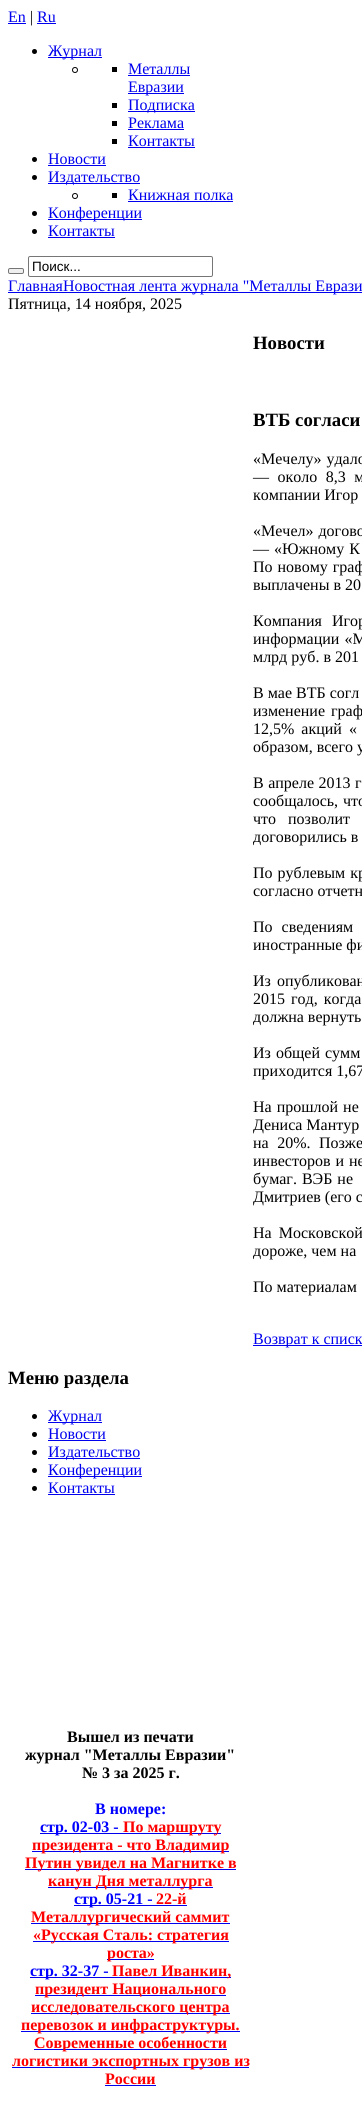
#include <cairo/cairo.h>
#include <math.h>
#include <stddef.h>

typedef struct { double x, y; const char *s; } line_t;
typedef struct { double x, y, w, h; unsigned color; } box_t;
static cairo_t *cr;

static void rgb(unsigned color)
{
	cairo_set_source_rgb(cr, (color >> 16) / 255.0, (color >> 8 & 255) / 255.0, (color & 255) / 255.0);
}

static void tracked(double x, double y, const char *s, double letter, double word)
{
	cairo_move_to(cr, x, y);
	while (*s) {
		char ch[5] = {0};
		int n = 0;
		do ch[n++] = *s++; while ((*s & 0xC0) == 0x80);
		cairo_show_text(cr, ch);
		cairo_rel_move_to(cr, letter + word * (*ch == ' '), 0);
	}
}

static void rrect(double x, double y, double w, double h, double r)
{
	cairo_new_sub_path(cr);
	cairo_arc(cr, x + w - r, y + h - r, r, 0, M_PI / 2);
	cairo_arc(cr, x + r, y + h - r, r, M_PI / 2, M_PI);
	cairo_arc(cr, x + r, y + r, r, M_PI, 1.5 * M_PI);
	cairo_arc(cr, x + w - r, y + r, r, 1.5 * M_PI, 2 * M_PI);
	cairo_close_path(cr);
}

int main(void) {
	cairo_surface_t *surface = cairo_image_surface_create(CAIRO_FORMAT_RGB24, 362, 2105);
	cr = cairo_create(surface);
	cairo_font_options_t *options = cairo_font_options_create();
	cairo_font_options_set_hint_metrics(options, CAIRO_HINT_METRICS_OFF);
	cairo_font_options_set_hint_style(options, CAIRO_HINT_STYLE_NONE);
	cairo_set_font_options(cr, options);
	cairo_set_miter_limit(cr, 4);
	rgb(0xffffff);
	cairo_paint(cr);
	rgb(0x0000ee);
	cairo_rectangle(cr, 8, 23, 18, 1);
	cairo_fill(cr);
	cairo_rectangle(cr, 37, 23, 19, 1);
	cairo_fill(cr);
	rgb(0x000000);
	cairo_arc(cr, 34.5, 51.5, 2.5, 0, 2 * M_PI);
	cairo_fill(cr);
	rgb(0x0000ee);
	cairo_rectangle(cr, 48, 57, 54, 1);
	cairo_fill(cr);
	cairo_arc(cr, 75, 70, 2.5, 0, 2 * M_PI);
	rgb(0x000000);
	cairo_set_line_width(cr, 1);
	cairo_stroke(cr);
	{
		static const box_t items[] = {
			{112, 67, 5, 5, 0x000000},
			{128, 75, 62, 1, 0x0000ee},
			{128, 93, 56, 1, 0x0000ee},
			{112, 103, 5, 5, 0x000000},
			{128, 111, 67, 1, 0x0000ee},
			{112, 121, 5, 5, 0x000000},
			{128, 129, 56, 1, 0x0000ee},
			{112, 139, 5, 5, 0x000000},
			{128, 147, 67, 1, 0x0000ee},
		};
		for (size_t i = 0; i < sizeof items / sizeof *items; i++) {
			rgb(items[i].color);
			cairo_rectangle(cr, items[i].x, items[i].y, items[i].w, items[i].h);
			cairo_fill(cr);
		}
	}
	rgb(0x000000);
	cairo_arc(cr, 34.5, 159.5, 2.5, 0, 2 * M_PI);
	cairo_fill(cr);
	rgb(0x0000ee);
	cairo_rectangle(cr, 48, 165, 58, 1);
	cairo_fill(cr);
	rgb(0x000000);
	cairo_arc(cr, 34.5, 177.5, 2.5, 0, 2 * M_PI);
	cairo_fill(cr);
	rgb(0x0000ee);
	cairo_rectangle(cr, 48, 183, 92, 1);
	cairo_fill(cr);
	cairo_arc(cr, 75, 196, 2.5, 0, 2 * M_PI);
	rgb(0x000000);
	cairo_stroke(cr);
	cairo_rectangle(cr, 112, 193, 5, 5);
	cairo_fill(cr);
	rgb(0x0000ee);
	cairo_rectangle(cr, 128, 201, 105, 1);
	cairo_fill(cr);
	rgb(0x000000);
	cairo_arc(cr, 34.5, 213.5, 2.5, 0, 2 * M_PI);
	cairo_fill(cr);
	rgb(0x0000ee);
	cairo_rectangle(cr, 48, 219, 94, 1);
	cairo_fill(cr);
	rgb(0x000000);
	cairo_arc(cr, 34.5, 231.5, 2.5, 0, 2 * M_PI);
	cairo_fill(cr);
	rgb(0x0000ee);
	cairo_rectangle(cr, 48, 237, 67, 1);
	cairo_fill(cr);
	rgb(0xefefef);
	rrect(8.5, 268.5, 15, 5, 1.5);
	cairo_fill_preserve(cr);
	rgb(0x767676);
	cairo_stroke(cr);
	rrect(28.5, 256.5, 184, 20, 1.5);
	cairo_stroke(cr);
	rgb(0x0000ee);
	cairo_rectangle(cr, 8, 292, 354, 1);
	cairo_fill(cr);
	cairo_rectangle(cr, 253, 1345, 109, 1);
	cairo_fill(cr);
	rgb(0x000000);
	cairo_arc(cr, 34.5, 1416.5, 2.5, 0, 2 * M_PI);
	cairo_fill(cr);
	rgb(0x0000ee);
	cairo_rectangle(cr, 48, 1422, 54, 1);
	cairo_fill(cr);
	rgb(0x000000);
	cairo_arc(cr, 34.5, 1434.5, 2.5, 0, 2 * M_PI);
	cairo_fill(cr);
	rgb(0x0000ee);
	cairo_rectangle(cr, 48, 1440, 58, 1);
	cairo_fill(cr);
	rgb(0x000000);
	cairo_arc(cr, 34.5, 1452.5, 2.5, 0, 2 * M_PI);
	cairo_fill(cr);
	rgb(0x0000ee);
	cairo_rectangle(cr, 48, 1458, 92, 1);
	cairo_fill(cr);
	rgb(0x000000);
	cairo_arc(cr, 34.5, 1470.5, 2.5, 0, 2 * M_PI);
	cairo_fill(cr);
	rgb(0x0000ee);
	cairo_rectangle(cr, 48, 1476, 94, 1);
	cairo_fill(cr);
	rgb(0x000000);
	cairo_arc(cr, 34.5, 1488.5, 2.5, 0, 2 * M_PI);
	cairo_fill(cr);
	{
		static const box_t items[] = {
			{48, 1494, 67, 1, 0x0000ee},
			{40, 1833, 181, 1, 0x0000ee},
			{32, 1851, 197, 1, 0x0000ee},
			{25, 1869, 211, 1, 0x0000ee},
			{48, 1887, 165, 1, 0x0000ee},
			{74, 1905, 113, 1, 0x0000ee},
			{31, 1923, 199, 1, 0x0000ee},
			{33, 1941, 196, 1, 0x0000ee},
			{107, 1959, 47, 1, 0x0000ee},
			{30, 1977, 201, 1, 0x0000ee},
			{35, 1995, 191, 1, 0x0000ee},
			{31, 2013, 199, 1, 0x0000ee},
			{21, 2031, 219, 1, 0x0000ee},
			{34, 2049, 193, 1, 0x0000ee},
			{12, 2067, 237, 1, 0x0000ee},
			{105, 2085, 51, 1, 0x0000ee},
		};
		for (size_t i = 0; i < sizeof items / sizeof *items; i++) {
			rgb(items[i].color);
			cairo_rectangle(cr, items[i].x, items[i].y, items[i].w, items[i].h);
			cairo_fill(cr);
		}
	}
	cairo_select_font_face(cr, "Liberation Serif", CAIRO_FONT_SLANT_NORMAL, CAIRO_FONT_WEIGHT_NORMAL);
	cairo_set_font_size(cr, 16);
	cairo_move_to(cr, 8, 22);
	cairo_show_text(cr, "En");
	rgb(0x000000);
	cairo_move_to(cr, 30, 22);
	cairo_show_text(cr, "|");
	rgb(0x0000ee);
	{
		static const line_t items[] = {
			{37, 22, "Ru"},
			{48, 56, "Журнал"},
			{128, 74, "Металлы"},
			{128, 92, "Евразии"},
			{128, 110, "Подписка"},
			{128, 128, "Реклама"},
			{128, 146, "Контакты"},
			{48, 164, "Новости"},
			{48, 182, "Издательство"},
			{128, 200, "Книжная полка"},
			{48, 218, "Конференции"},
			{48, 236, "Контакты"},
		};
		for (size_t i = 0; i < sizeof items / sizeof *items; i++) {
			cairo_move_to(cr, items[i].x, items[i].y);
			cairo_show_text(cr, items[i].s);
		}
	}
	cairo_select_font_face(cr, "Liberation Sans", CAIRO_FONT_SLANT_NORMAL, CAIRO_FONT_WEIGHT_NORMAL);
	cairo_set_font_size(cr, 13.5);
	rgb(0x000000);
	cairo_move_to(cr, 32, 271);
	cairo_show_text(cr, "Поиск...");
	cairo_select_font_face(cr, "Liberation Serif", CAIRO_FONT_SLANT_NORMAL, CAIRO_FONT_WEIGHT_NORMAL);
	cairo_set_font_size(cr, 16);
	rgb(0x0000ee);
	cairo_move_to(cr, 8, 291);
	cairo_show_text(cr, "ГлавнаяНовостная лента журнала \"Металлы Еврази");
	rgb(0x000000);
	cairo_move_to(cr, 8, 309);
	cairo_show_text(cr, "Пятница, 14 ноября, 2025");
	cairo_select_font_face(cr, "Liberation Serif", CAIRO_FONT_SLANT_NORMAL, CAIRO_FONT_WEIGHT_BOLD);
	cairo_set_font_size(cr, 18.75);
	cairo_move_to(cr, 253, 349);
	cairo_show_text(cr, "Новости");
	cairo_move_to(cr, 253, 426);
	cairo_show_text(cr, "ВТБ согласи");
	cairo_select_font_face(cr, "Liberation Serif", CAIRO_FONT_SLANT_NORMAL, CAIRO_FONT_WEIGHT_NORMAL);
	cairo_set_font_size(cr, 16);
	tracked(253, 464, "«Мечелу» удало", 0, 1);
	tracked(253, 482, "— около 8,3 м", 0, 4.5);
	cairo_move_to(cr, 253, 500);
	cairo_show_text(cr, "компании Игор");
	{
		static const line_t items[] = {
			{253, 536, "«Мечел» догово"},
			{253, 554, "— «Южному К"},
			{253, 572, "По новому граф"},
		};
		for (size_t i = 0; i < sizeof items / sizeof *items; i++) {
			tracked(items[i].x, items[i].y, items[i].s, 0, 1);
		}
	}
	cairo_move_to(cr, 253, 590);
	cairo_show_text(cr, "выплачены в 20");
	tracked(253, 626, "Компания Игор", 0, 6);
	tracked(253, 644, "информации «М", 0, 1);
	cairo_move_to(cr, 253, 662);
	cairo_show_text(cr, "млрд руб. в 201");
	cairo_move_to(cr, 253, 698);
	cairo_show_text(cr, "В мае ВТБ согл");
	tracked(253, 716, "изменение граф", 0, 2);
	tracked(253, 734, "12,5% акций «", 0, 3);
	cairo_move_to(cr, 253, 752);
	cairo_show_text(cr, "образом, всего у");
	tracked(253, 788, "В апреле 2013 г", 0, 0.5);
	tracked(253, 806, "сообщалось, что", 0, 1);
	tracked(253, 824, "что позволит", 0, 8);
	cairo_move_to(cr, 253, 842);
	cairo_show_text(cr, "договорились в");
	tracked(253, 878, "По рублевым кр", 0, 1);
	cairo_move_to(cr, 253, 896);
	cairo_show_text(cr, "согласно отчетн");
	tracked(253, 932, "По сведениям", 0, 5);
	cairo_move_to(cr, 253, 950);
	cairo_show_text(cr, "иностранные фи");
	tracked(253, 986, "Из опубликован", 0, 2);
	tracked(253, 1004, "2015 год, когда", 0, 2);
	cairo_move_to(cr, 253, 1022);
	cairo_show_text(cr, "должна вернуть");
	tracked(253, 1058, "Из общей сумм", 0, 1);
	cairo_move_to(cr, 253, 1076);
	cairo_show_text(cr, "приходится 1,67");
	tracked(253, 1112, "На прошлой не", 0, 1);
	cairo_move_to(cr, 253, 1130);
	cairo_show_text(cr, "Дениса Мантур");
	tracked(253, 1148, "на 20%. Позже", 0, 4.5);
	tracked(253, 1166, "инвесторов и не", 0, 1);
	tracked(253, 1184, "бумаг. ВЭБ не", 0, 1);
	cairo_move_to(cr, 253, 1202);
	cairo_show_text(cr, "Дмитриев (его с");
	tracked(253, 1238, "На Московской", 0, 3);
	cairo_move_to(cr, 253, 1256);
	cairo_show_text(cr, "дороже, чем на");
	cairo_move_to(cr, 253, 1292);
	cairo_show_text(cr, "По материалам");
	rgb(0x0000ee);
	cairo_move_to(cr, 253, 1344);
	cairo_show_text(cr, "Возврат к списк");
	cairo_select_font_face(cr, "Liberation Serif", CAIRO_FONT_SLANT_NORMAL, CAIRO_FONT_WEIGHT_BOLD);
	cairo_set_font_size(cr, 18.75);
	rgb(0x000000);
	cairo_move_to(cr, 8, 1384);
	cairo_show_text(cr, "Меню раздела");
	cairo_select_font_face(cr, "Liberation Serif", CAIRO_FONT_SLANT_NORMAL, CAIRO_FONT_WEIGHT_NORMAL);
	cairo_set_font_size(cr, 16);
	rgb(0x0000ee);
	{
		static const line_t items[] = {
			{48, 1421, "Журнал"},
			{48, 1439, "Новости"},
			{48, 1457, "Издательство"},
			{48, 1475, "Конференции"},
			{48, 1493, "Контакты"},
		};
		for (size_t i = 0; i < sizeof items / sizeof *items; i++) {
			cairo_move_to(cr, items[i].x, items[i].y);
			cairo_show_text(cr, items[i].s);
		}
	}
	cairo_select_font_face(cr, "Liberation Serif", CAIRO_FONT_SLANT_NORMAL, CAIRO_FONT_WEIGHT_BOLD);
	rgb(0x000000);
	{
		static const line_t items[] = {
			{67, 1742, "Вышел из печати"},
			{25, 1760, "журнал \"Металлы Евразии\""},
			{82, 1778, "№ 3 за 2025 г."},
		};
		for (size_t i = 0; i < sizeof items / sizeof *items; i++) {
			cairo_move_to(cr, items[i].x, items[i].y);
			cairo_show_text(cr, items[i].s);
		}
	}
	rgb(0x0000ff);
	cairo_move_to(cr, 95, 1814);
	cairo_show_text(cr, "В номере:");
	cairo_move_to(cr, 40, 1832);
	cairo_show_text(cr, "стр. 02-03 -");
	rgb(0xff0000);
	{
		static const line_t items[] = {
			{123, 1832, "По маршруту"},
			{32, 1850, "президента - что Владимир"},
			{25, 1868, "Путин увидел на Магнитке в"},
			{48, 1886, "канун Дня металлурга"},
		};
		for (size_t i = 0; i < sizeof items / sizeof *items; i++) {
			cairo_move_to(cr, items[i].x, items[i].y);
			cairo_show_text(cr, items[i].s);
		}
	}
	rgb(0x0000ff);
	cairo_move_to(cr, 74, 1904);
	cairo_show_text(cr, "стр. 05-21 -");
	rgb(0xff0000);
	{
		static const line_t items[] = {
			{156, 1904, "22-й"},
			{31, 1922, "Металлургический саммит"},
			{33, 1940, "«Русская Сталь: стратегия"},
			{107, 1958, "роста»"},
		};
		for (size_t i = 0; i < sizeof items / sizeof *items; i++) {
			cairo_move_to(cr, items[i].x, items[i].y);
			cairo_show_text(cr, items[i].s);
		}
	}
	rgb(0x0000ff);
	cairo_move_to(cr, 30, 1976);
	cairo_show_text(cr, "стр. 32-37 -");
	rgb(0xff0000);
	{
		static const line_t items[] = {
			{112, 1976, "Павел Иванкин,"},
			{35, 1994, "президент Национального"},
			{31, 2012, "исследовательского центра"},
			{21, 2030, "перевозок и инфраструктуры."},
			{34, 2048, "Современные особенности"},
			{12, 2066, "логистики экспортных грузов из"},
			{105, 2084, "России"},
		};
		for (size_t i = 0; i < sizeof items / sizeof *items; i++) {
			cairo_move_to(cr, items[i].x, items[i].y);
			cairo_show_text(cr, items[i].s);
		}
	}
	cairo_surface_write_to_png(surface, "page.png");
	cairo_font_options_destroy(options);
	cairo_destroy(cr);
	cairo_surface_destroy(surface);
	return 0;
}
